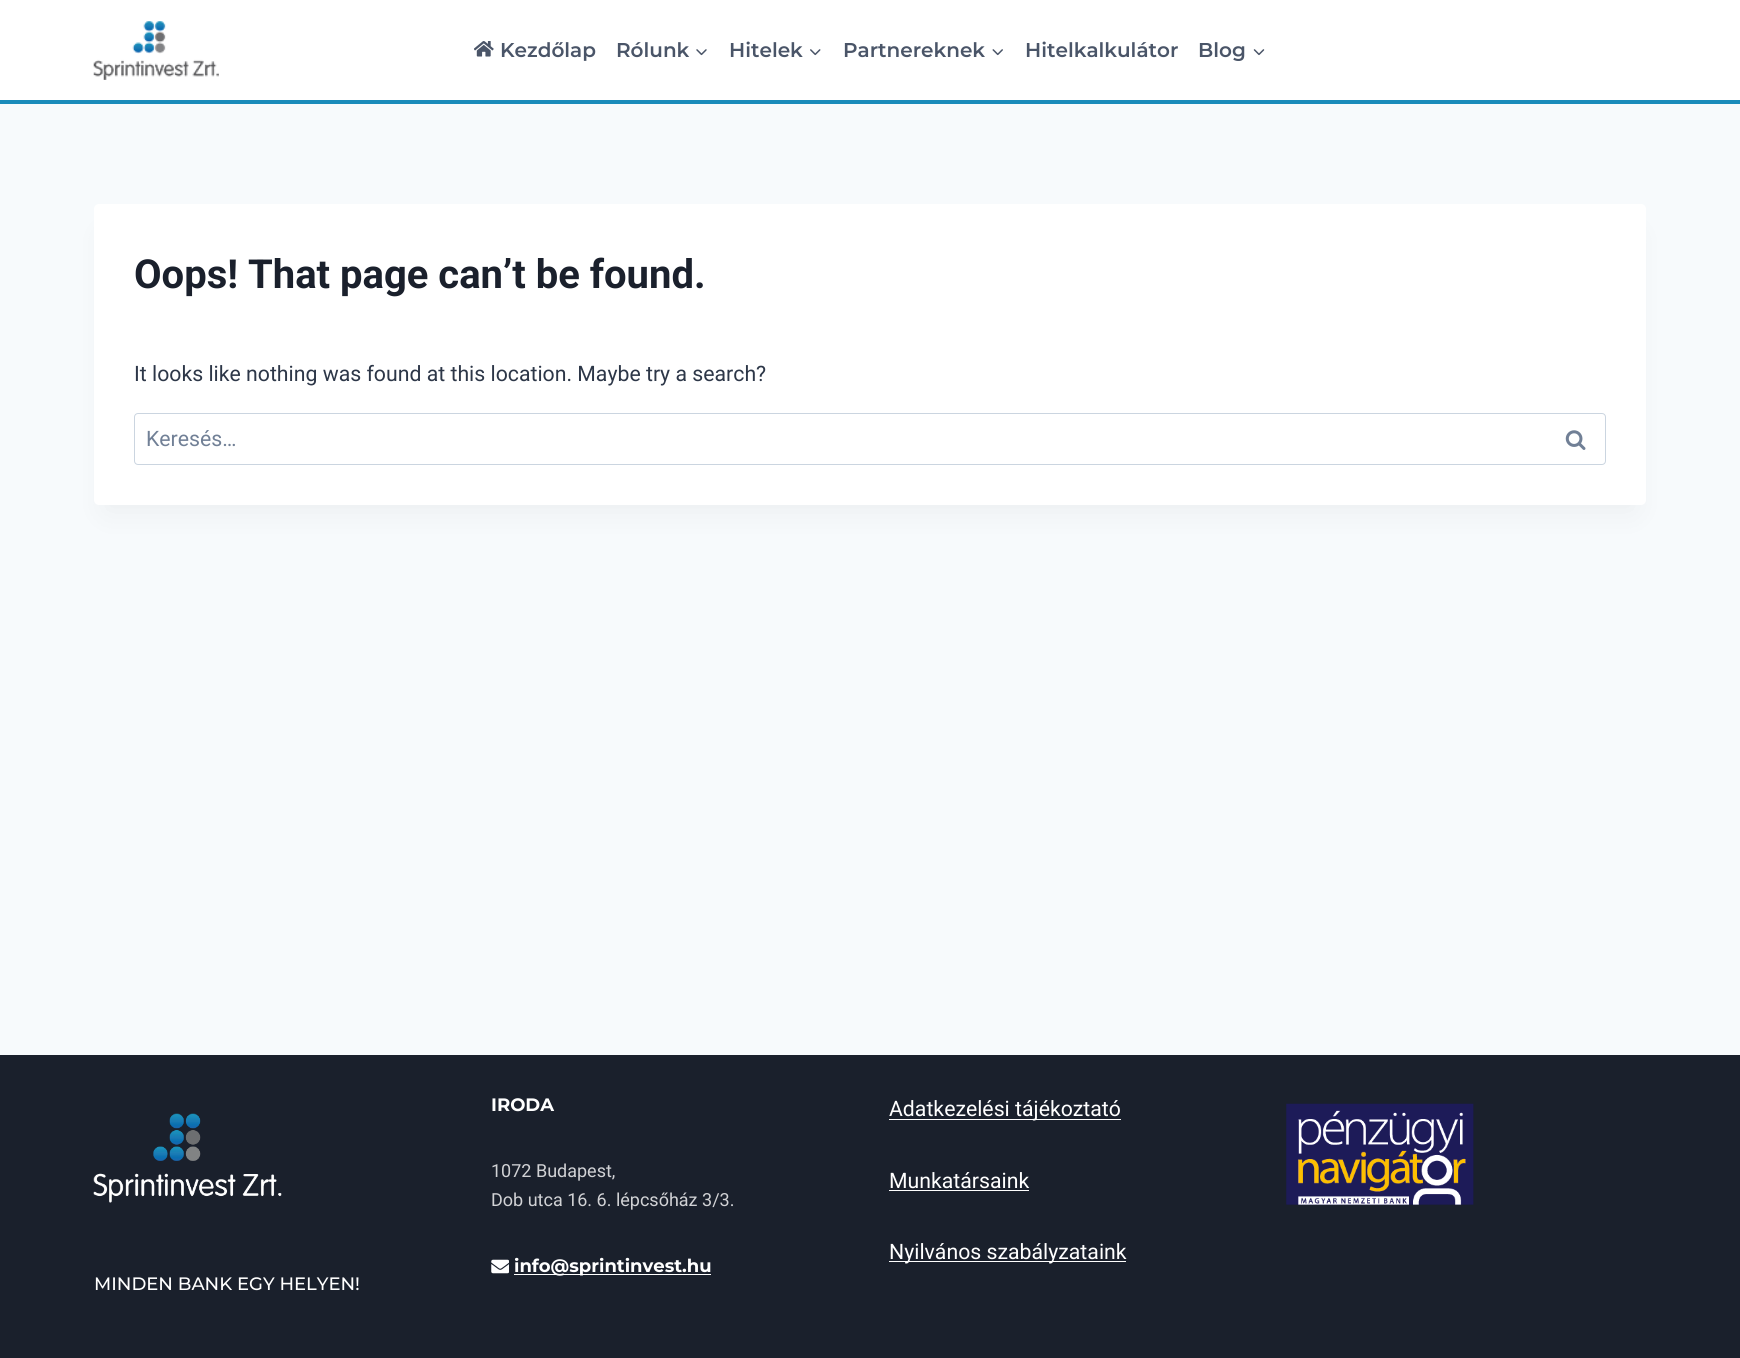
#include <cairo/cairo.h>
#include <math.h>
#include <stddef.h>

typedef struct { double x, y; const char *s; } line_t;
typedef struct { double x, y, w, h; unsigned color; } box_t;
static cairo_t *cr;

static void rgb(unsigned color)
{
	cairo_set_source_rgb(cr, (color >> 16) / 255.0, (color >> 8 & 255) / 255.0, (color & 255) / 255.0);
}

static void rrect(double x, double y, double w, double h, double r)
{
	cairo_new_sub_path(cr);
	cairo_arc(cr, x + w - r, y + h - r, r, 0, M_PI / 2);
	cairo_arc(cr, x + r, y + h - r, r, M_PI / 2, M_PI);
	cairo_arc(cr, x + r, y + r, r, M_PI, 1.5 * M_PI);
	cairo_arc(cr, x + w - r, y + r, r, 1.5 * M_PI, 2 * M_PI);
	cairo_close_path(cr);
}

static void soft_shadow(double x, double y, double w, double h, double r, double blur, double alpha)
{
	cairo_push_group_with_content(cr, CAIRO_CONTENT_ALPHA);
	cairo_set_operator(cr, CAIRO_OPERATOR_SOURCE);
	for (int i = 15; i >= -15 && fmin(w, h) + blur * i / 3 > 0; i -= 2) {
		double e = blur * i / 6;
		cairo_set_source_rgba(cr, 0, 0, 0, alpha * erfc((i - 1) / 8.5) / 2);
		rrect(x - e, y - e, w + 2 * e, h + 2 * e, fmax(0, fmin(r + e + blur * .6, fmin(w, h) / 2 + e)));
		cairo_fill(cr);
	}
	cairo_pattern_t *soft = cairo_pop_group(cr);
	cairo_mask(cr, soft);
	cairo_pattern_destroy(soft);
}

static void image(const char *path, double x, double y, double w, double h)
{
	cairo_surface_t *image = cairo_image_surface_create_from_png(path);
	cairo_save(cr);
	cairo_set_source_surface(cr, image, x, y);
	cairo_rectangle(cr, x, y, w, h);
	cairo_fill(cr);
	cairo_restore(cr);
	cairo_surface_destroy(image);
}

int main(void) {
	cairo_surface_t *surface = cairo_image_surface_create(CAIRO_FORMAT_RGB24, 1740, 1358);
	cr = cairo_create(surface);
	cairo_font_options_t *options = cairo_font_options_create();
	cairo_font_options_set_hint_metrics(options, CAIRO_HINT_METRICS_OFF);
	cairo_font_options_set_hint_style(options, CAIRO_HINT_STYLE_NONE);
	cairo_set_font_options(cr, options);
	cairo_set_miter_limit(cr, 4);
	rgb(0xf7fafc);
	cairo_paint(cr);
	rgb(0xffffff);
	cairo_rectangle(cr, 0, 0, 1740, 100);
	cairo_fill(cr);
	rgb(0x1a8bba);
	cairo_rectangle(cr, 0, 100, 1740, 4);
	cairo_fill(cr);
	image("img/1.png", 93, 21, 126, 59);
	image("img/2.png", 474, 41, 20, 16);
	image("img/3.png", 696, 49, 11, 7);
	image("img/4.png", 810, 49, 11, 7);
	image("img/5.png", 992, 49, 11, 7);
	image("img/6.png", 1253, 49, 12, 7);
	rgb(0x000000);
	soft_shadow(106, 235, 1528, 276, 0, 15.5, 0.05);
	rgb(0xffffff);
	rrect(94, 204, 1552, 301, 5);
	cairo_fill(cr);
	rrect(134.5, 413.5, 1471, 51, 3.5);
	rgb(0xcbd5e0);
	cairo_set_line_width(cr, 1);
	cairo_stroke(cr);
	image("img/7.png", 1565, 430, 21, 20);
	rgb(0x1a202c);
	cairo_rectangle(cr, 0, 1055, 1740, 303);
	cairo_fill(cr);
	image("img/8.png", 491, 1259, 18, 15);
	{
		static const box_t items[] = {
			{514, 1274, 197, 1, 0xffffff},
			{889, 1119, 232, 1, 0xffffff},
			{889, 1190, 140, 1, 0xffffff},
			{889, 1261, 237, 1, 0xffffff},
		};
		for (size_t i = 0; i < sizeof items / sizeof *items; i++) {
			rgb(items[i].color);
			cairo_rectangle(cr, items[i].x, items[i].y, items[i].w, items[i].h);
			cairo_fill(cr);
		}
	}
	image("img/9.png", 1286, 1103, 188, 102);
	image("img/10.png", 93, 1113, 189, 90);
	cairo_select_font_face(cr, "Montserrat SemiBold", CAIRO_FONT_SLANT_NORMAL, CAIRO_FONT_WEIGHT_NORMAL);
	cairo_set_font_size(cr, 20);
	rgb(0x4a5568);
	{
		static const line_t items[] = {
			{500, 57, "Kezdőlap"},
			{616, 57, "Rólunk"},
			{729, 57, "Hitelek"},
			{843, 57, "Partnereknek"},
			{1025, 57, "Hitelkalkulátor"},
			{1198, 57, "Blog"},
		};
		for (size_t i = 0; i < sizeof items / sizeof *items; i++) {
			cairo_move_to(cr, items[i].x, items[i].y);
			cairo_show_text(cr, items[i].s);
		}
	}
	cairo_select_font_face(cr, "Roboto", CAIRO_FONT_SLANT_NORMAL, CAIRO_FONT_WEIGHT_BOLD);
	cairo_set_font_size(cr, 40);
	rgb(0x1a202c);
	cairo_move_to(cr, 134, 288);
	cairo_show_text(cr, "Oops! That page can’t be found.");
	cairo_select_font_face(cr, "Roboto", CAIRO_FONT_SLANT_NORMAL, CAIRO_FONT_WEIGHT_NORMAL);
	cairo_set_font_size(cr, 21.25);
	rgb(0x2d3748);
	cairo_move_to(cr, 134, 381);
	cairo_show_text(cr, "It looks like nothing was found at this location. Maybe try a search?");
	rgb(0x718096);
	cairo_move_to(cr, 146, 446);
	cairo_show_text(cr, "Keresés…");
	cairo_select_font_face(cr, "Montserrat", CAIRO_FONT_SLANT_NORMAL, CAIRO_FONT_WEIGHT_BOLD);
	cairo_set_font_size(cr, 18);
	rgb(0xffffff);
	cairo_move_to(cr, 491, 1111);
	cairo_show_text(cr, "IRODA");
	cairo_select_font_face(cr, "Roboto", CAIRO_FONT_SLANT_NORMAL, CAIRO_FONT_WEIGHT_NORMAL);
	rgb(0xd1d2d5);
	cairo_move_to(cr, 491, 1177);
	cairo_show_text(cr, "1072 Budapest,");
	cairo_move_to(cr, 491, 1206);
	cairo_show_text(cr, "Dob utca 16. 6. lépcsőház 3/3.");
	cairo_select_font_face(cr, "Montserrat", CAIRO_FONT_SLANT_NORMAL, CAIRO_FONT_WEIGHT_BOLD);
	rgb(0xffffff);
	cairo_move_to(cr, 514, 1272);
	cairo_show_text(cr, "info@sprintinvest.hu");
	cairo_select_font_face(cr, "Roboto", CAIRO_FONT_SLANT_NORMAL, CAIRO_FONT_WEIGHT_NORMAL);
	cairo_set_font_size(cr, 21.25);
	{
		static const line_t items[] = {
			{889, 1116, "Adatkezelési tájékoztató"},
			{889, 1188, "Munkatársaink"},
			{889, 1259, "Nyilvános szabályzataink"},
		};
		for (size_t i = 0; i < sizeof items / sizeof *items; i++) {
			cairo_move_to(cr, items[i].x, items[i].y);
			cairo_show_text(cr, items[i].s);
		}
	}
	cairo_select_font_face(cr, "Montserrat Medium", CAIRO_FONT_SLANT_NORMAL, CAIRO_FONT_WEIGHT_NORMAL);
	cairo_set_font_size(cr, 18);
	cairo_move_to(cr, 94, 1290);
	cairo_show_text(cr, "MINDEN BANK EGY HELYEN!");
	cairo_surface_write_to_png(surface, "page.png");
	cairo_font_options_destroy(options);
	cairo_destroy(cr);
	cairo_surface_destroy(surface);
	return 0;
}
